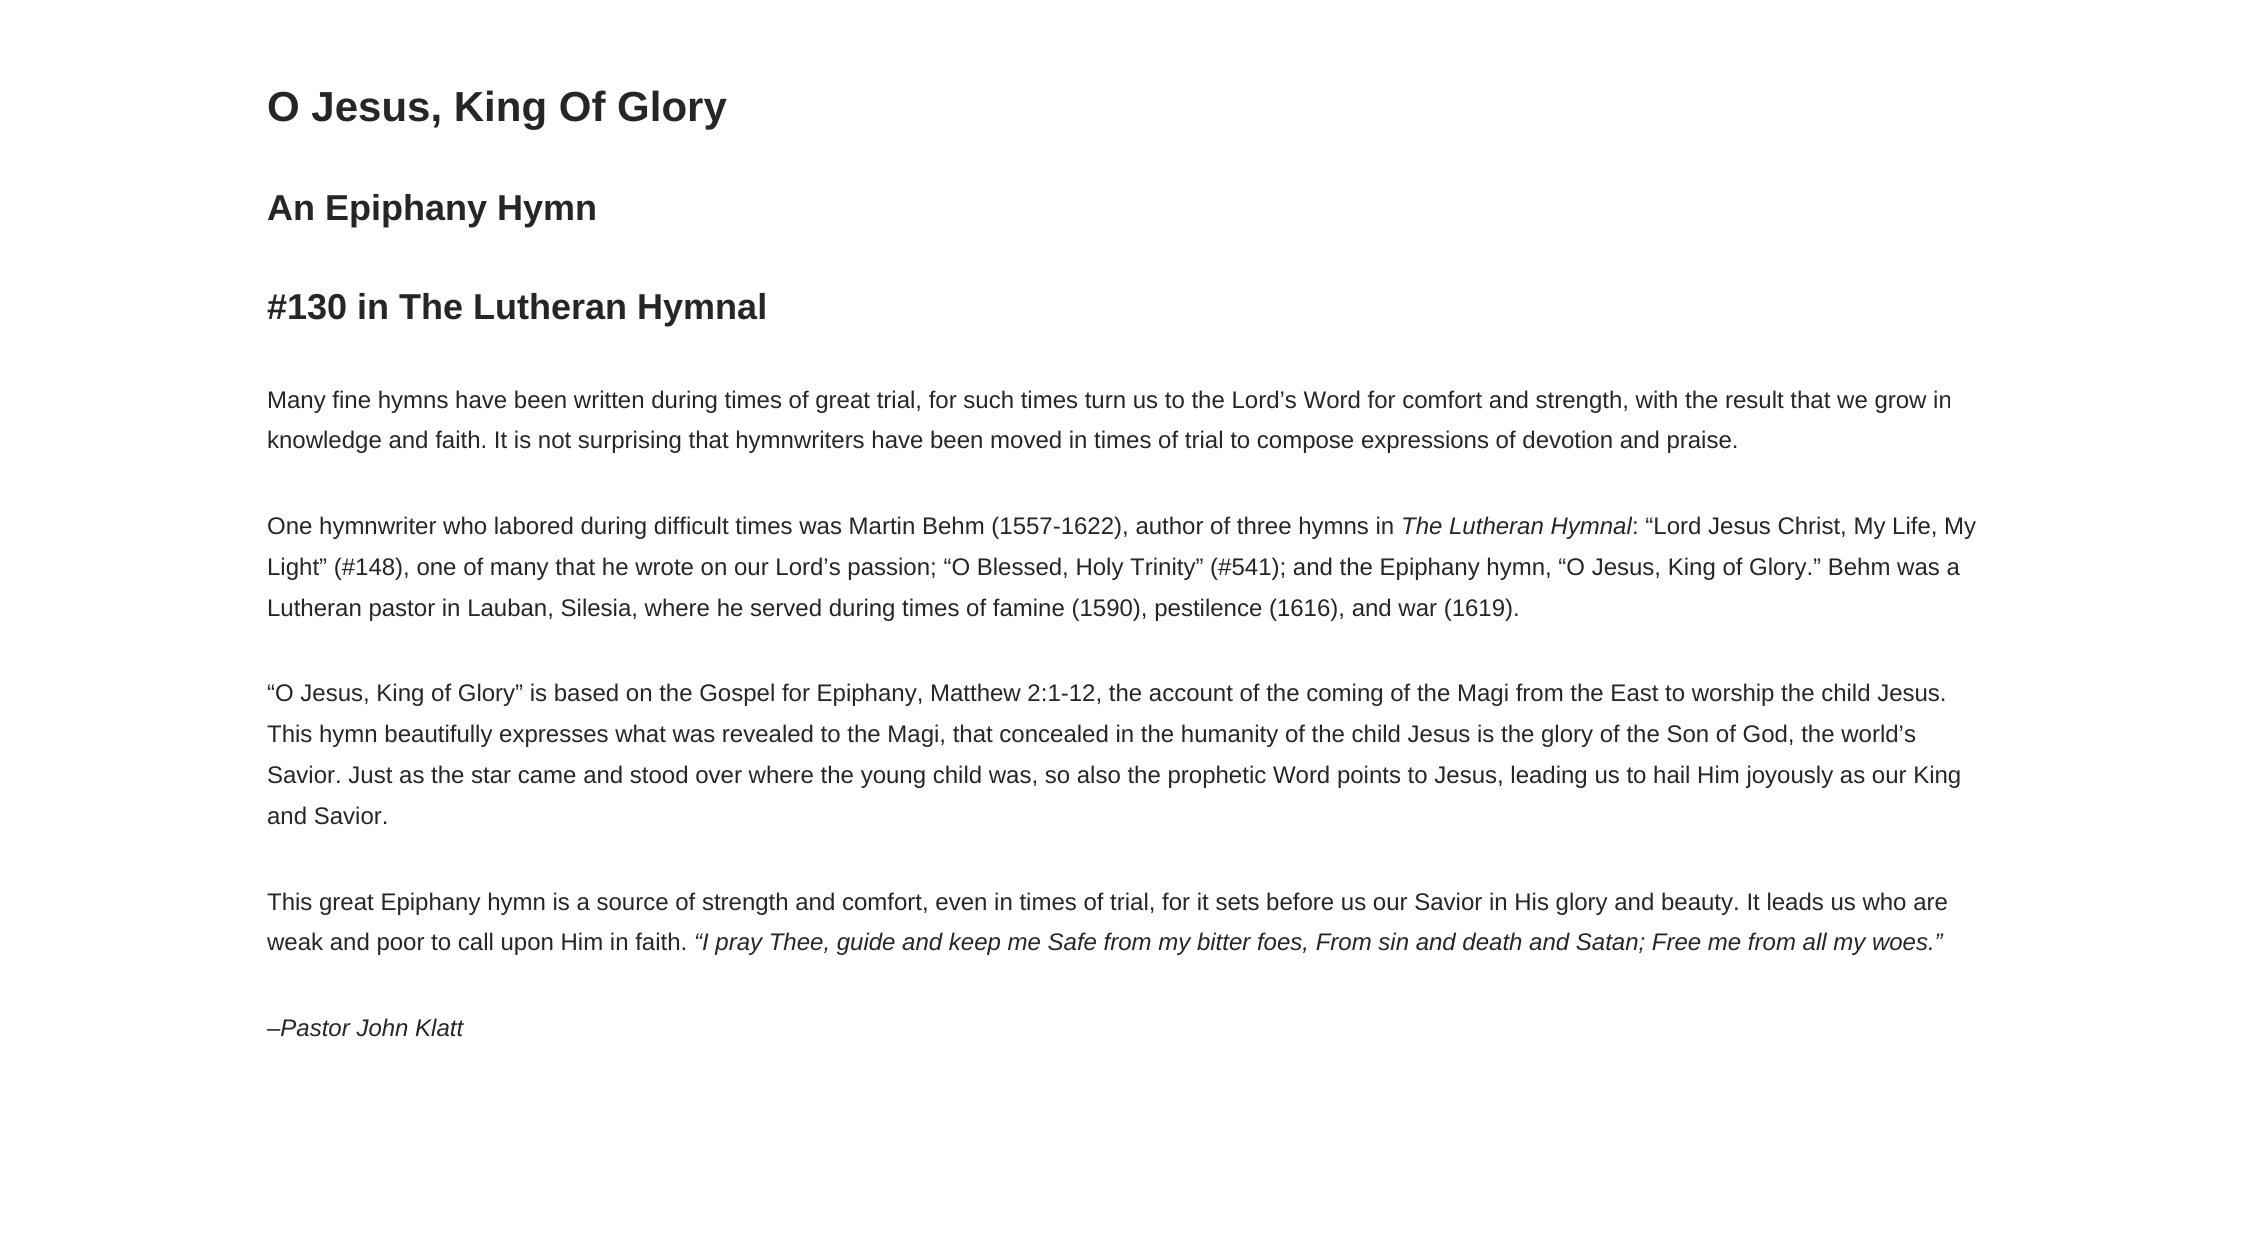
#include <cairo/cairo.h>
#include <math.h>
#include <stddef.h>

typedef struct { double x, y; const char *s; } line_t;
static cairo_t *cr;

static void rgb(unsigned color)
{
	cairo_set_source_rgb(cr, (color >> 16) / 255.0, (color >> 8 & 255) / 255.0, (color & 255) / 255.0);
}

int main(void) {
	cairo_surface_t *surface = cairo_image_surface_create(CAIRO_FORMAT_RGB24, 2243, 1240);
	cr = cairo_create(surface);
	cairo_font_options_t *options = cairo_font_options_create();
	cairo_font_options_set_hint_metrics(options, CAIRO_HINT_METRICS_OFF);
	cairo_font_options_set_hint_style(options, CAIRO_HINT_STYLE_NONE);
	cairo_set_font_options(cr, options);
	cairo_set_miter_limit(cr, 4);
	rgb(0xffffff);
	cairo_paint(cr);
	cairo_select_font_face(cr, "Liberation Sans", CAIRO_FONT_SLANT_NORMAL, CAIRO_FONT_WEIGHT_BOLD);
	cairo_set_font_size(cr, 42);
	rgb(0x272626);
	cairo_move_to(cr, 267, 121);
	cairo_show_text(cr, "O Jesus, King Of Glory");
	cairo_set_font_size(cr, 36);
	cairo_move_to(cr, 267, 220);
	cairo_show_text(cr, "An Epiphany Hymn");
	cairo_move_to(cr, 267, 319);
	cairo_show_text(cr, "#130 in The Lutheran Hymnal");
	cairo_select_font_face(cr, "Liberation Sans", CAIRO_FONT_SLANT_NORMAL, CAIRO_FONT_WEIGHT_NORMAL);
	cairo_set_font_size(cr, 24);
	{
		static const line_t items[] = {
			{267, 408, "Many fine hymns have been written during times of great trial, for such times turn us to the Lord’s Word for comfort and strength, with the result that we grow in"},
			{267, 448, "knowledge and faith. It is not surprising that hymnwriters have been moved in times of trial to compose expressions of devotion and praise."},
			{267, 534, "One hymnwriter who labored during difficult times was Martin Behm (1557-1622), author of three hymns in"},
		};
		for (size_t i = 0; i < sizeof items / sizeof *items; i++) {
			cairo_move_to(cr, items[i].x, items[i].y);
			cairo_show_text(cr, items[i].s);
		}
	}
	cairo_select_font_face(cr, "Liberation Sans", CAIRO_FONT_SLANT_ITALIC, CAIRO_FONT_WEIGHT_NORMAL);
	cairo_move_to(cr, 1401, 534);
	cairo_show_text(cr, "The Lutheran Hymnal");
	cairo_select_font_face(cr, "Liberation Sans", CAIRO_FONT_SLANT_NORMAL, CAIRO_FONT_WEIGHT_NORMAL);
	{
		static const line_t items[] = {
			{1632, 534, ": “Lord Jesus Christ, My Life, My"},
			{267, 575, "Light” (#148), one of many that he wrote on our Lord’s passion; “O Blessed, Holy Trinity” (#541); and the Epiphany hymn, “O Jesus, King of Glory.” Behm was a"},
			{267, 616, "Lutheran pastor in Lauban, Silesia, where he served during times of famine (1590), pestilence (1616), and war (1619)."},
			{267, 701, "“O Jesus, King of Glory” is based on the Gospel for Epiphany, Matthew 2:1-12, the account of the coming of the Magi from the East to worship the child Jesus."},
			{267, 742, "This hymn beautifully expresses what was revealed to the Magi, that concealed in the humanity of the child Jesus is the glory of the Son of God, the world’s"},
			{267, 783, "Savior. Just as the star came and stood over where the young child was, so also the prophetic Word points to Jesus, leading us to hail Him joyously as our King"},
			{267, 824, "and Savior."},
			{267, 910, "This great Epiphany hymn is a source of strength and comfort, even in times of trial, for it sets before us our Savior in His glory and beauty. It leads us who are"},
			{267, 950, "weak and poor to call upon Him in faith."},
		};
		for (size_t i = 0; i < sizeof items / sizeof *items; i++) {
			cairo_move_to(cr, items[i].x, items[i].y);
			cairo_show_text(cr, items[i].s);
		}
	}
	cairo_select_font_face(cr, "Liberation Sans", CAIRO_FONT_SLANT_ITALIC, CAIRO_FONT_WEIGHT_NORMAL);
	cairo_move_to(cr, 694, 950);
	cairo_show_text(cr, "“I pray Thee, guide and keep me Safe from my bitter foes, From sin and death and Satan; Free me from all my woes.”");
	cairo_move_to(cr, 267, 1036);
	cairo_show_text(cr, "–Pastor John Klatt");
	cairo_surface_write_to_png(surface, "page.png");
	cairo_font_options_destroy(options);
	cairo_destroy(cr);
	cairo_surface_destroy(surface);
	return 0;
}
